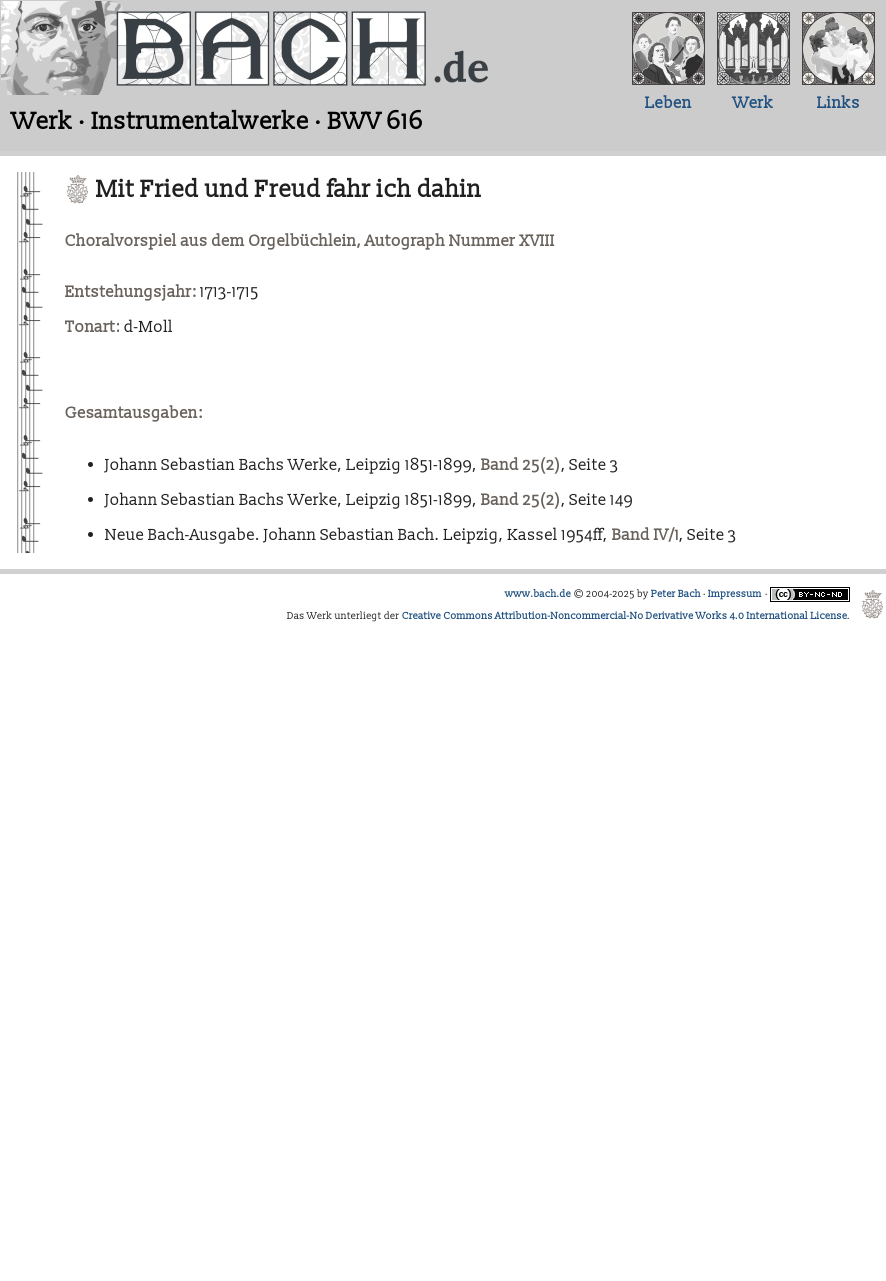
#include <cairo/cairo.h>
#include <math.h>
#include <stddef.h>

typedef struct { double x, y; const char *s; } line_t;
static cairo_t *cr;

static void rgb(unsigned color)
{
	cairo_set_source_rgb(cr, (color >> 16) / 255.0, (color >> 8 & 255) / 255.0, (color & 255) / 255.0);
}

static void image(const char *path, double x, double y, double w, double h)
{
	cairo_surface_t *image = cairo_image_surface_create_from_png(path);
	cairo_save(cr);
	cairo_set_source_surface(cr, image, x, y);
	cairo_rectangle(cr, x, y, w, h);
	cairo_fill(cr);
	cairo_restore(cr);
	cairo_surface_destroy(image);
}

int main(void) {
	cairo_surface_t *surface = cairo_image_surface_create(CAIRO_FORMAT_RGB24, 886, 1281);
	cr = cairo_create(surface);
	cairo_font_options_t *options = cairo_font_options_create();
	cairo_font_options_set_hint_metrics(options, CAIRO_HINT_METRICS_OFF);
	cairo_font_options_set_hint_style(options, CAIRO_HINT_STYLE_NONE);
	cairo_set_font_options(cr, options);
	cairo_set_miter_limit(cr, 4);
	rgb(0xffffff);
	cairo_paint(cr);
	rgb(0xcccccc);
	cairo_rectangle(cr, 0, 0, 886, 151);
	cairo_fill(cr);
	image("img/1.png", 632, 12, 73, 73);
	image("img/2.png", 717, 12, 73, 73);
	image("img/3.png", 802, 12, 73, 73);
	image("img/4.png", 1, 1, 488, 94);
	rgb(0xd0d0d0);
	cairo_rectangle(cr, 0, 151, 886, 5);
	cairo_fill(cr);
	image("img/5.png", 17, 172, 26, 381);
	image("img/6.png", 66, 175, 22, 29);
	rgb(0x202020);
	cairo_arc(cr, 90.5, 464.5, 2.5, 0, 2 * M_PI);
	cairo_fill(cr);
	cairo_arc(cr, 90.5, 499.5, 2.5, 0, 2 * M_PI);
	cairo_fill(cr);
	cairo_arc(cr, 90.5, 534.5, 2.5, 0, 2 * M_PI);
	cairo_fill(cr);
	rgb(0xd0d0d0);
	cairo_rectangle(cr, 0, 569, 886, 5);
	cairo_fill(cr);
	image("img/7.png", 770, 587, 80, 15);
	image("img/6.png", 861, 590, 22, 29);
	cairo_select_font_face(cr, "Slabo 13px", CAIRO_FONT_SLANT_NORMAL, CAIRO_FONT_WEIGHT_BOLD);
	cairo_set_font_size(cr, 16);
	rgb(0x205080);
	{
		static const line_t items[] = {
			{645, 108, "Leben"},
			{733, 108, "Werk"},
			{817, 108, "Links"},
		};
		for (size_t i = 0; i < sizeof items / sizeof *items; i++) {
			cairo_move_to(cr, items[i].x, items[i].y);
			cairo_show_text(cr, items[i].s);
		}
	}
	cairo_set_font_size(cr, 24);
	rgb(0x000000);
	cairo_move_to(cr, 12, 129);
	cairo_show_text(cr, "Werk · Instrumentalwerke · BWV 616");
	rgb(0x202020);
	cairo_move_to(cr, 96, 197);
	cairo_show_text(cr, "Mit Fried und Freud fahr ich dahin");
	cairo_set_font_size(cr, 16);
	rgb(0x69625c);
	cairo_move_to(cr, 65, 246);
	cairo_show_text(cr, "Choralvorspiel aus dem Orgelbüchlein, Autograph Nummer XVIII");
	cairo_move_to(cr, 65, 297);
	cairo_show_text(cr, "Entstehungsjahr:");
	cairo_select_font_face(cr, "Slabo 13px", CAIRO_FONT_SLANT_NORMAL, CAIRO_FONT_WEIGHT_NORMAL);
	rgb(0x202020);
	cairo_move_to(cr, 200, 297);
	cairo_show_text(cr, "1713-1715");
	cairo_select_font_face(cr, "Slabo 13px", CAIRO_FONT_SLANT_NORMAL, CAIRO_FONT_WEIGHT_BOLD);
	rgb(0x69625c);
	cairo_move_to(cr, 65, 332);
	cairo_show_text(cr, "Tonart:");
	cairo_select_font_face(cr, "Slabo 13px", CAIRO_FONT_SLANT_NORMAL, CAIRO_FONT_WEIGHT_NORMAL);
	rgb(0x202020);
	cairo_move_to(cr, 124, 332);
	cairo_show_text(cr, "d-Moll");
	cairo_select_font_face(cr, "Slabo 13px", CAIRO_FONT_SLANT_NORMAL, CAIRO_FONT_WEIGHT_BOLD);
	rgb(0x69625c);
	cairo_move_to(cr, 65, 418);
	cairo_show_text(cr, "Gesamtausgaben:");
	cairo_select_font_face(cr, "Slabo 13px", CAIRO_FONT_SLANT_NORMAL, CAIRO_FONT_WEIGHT_NORMAL);
	rgb(0x202020);
	cairo_move_to(cr, 105, 470);
	cairo_show_text(cr, "Johann Sebastian Bachs Werke, Leipzig 1851-1899,");
	cairo_select_font_face(cr, "Slabo 13px", CAIRO_FONT_SLANT_NORMAL, CAIRO_FONT_WEIGHT_BOLD);
	rgb(0x69625c);
	cairo_move_to(cr, 481, 470);
	cairo_show_text(cr, "Band 25(2)");
	cairo_select_font_face(cr, "Slabo 13px", CAIRO_FONT_SLANT_NORMAL, CAIRO_FONT_WEIGHT_NORMAL);
	rgb(0x202020);
	cairo_move_to(cr, 561, 470);
	cairo_show_text(cr, ", Seite 3");
	cairo_move_to(cr, 105, 505);
	cairo_show_text(cr, "Johann Sebastian Bachs Werke, Leipzig 1851-1899,");
	cairo_select_font_face(cr, "Slabo 13px", CAIRO_FONT_SLANT_NORMAL, CAIRO_FONT_WEIGHT_BOLD);
	rgb(0x69625c);
	cairo_move_to(cr, 481, 505);
	cairo_show_text(cr, "Band 25(2)");
	cairo_select_font_face(cr, "Slabo 13px", CAIRO_FONT_SLANT_NORMAL, CAIRO_FONT_WEIGHT_NORMAL);
	rgb(0x202020);
	cairo_move_to(cr, 561, 505);
	cairo_show_text(cr, ", Seite 149");
	cairo_move_to(cr, 105, 540);
	cairo_show_text(cr, "Neue Bach-Ausgabe. Johann Sebastian Bach. Leipzig, Kassel 1954ff,");
	cairo_select_font_face(cr, "Slabo 13px", CAIRO_FONT_SLANT_NORMAL, CAIRO_FONT_WEIGHT_BOLD);
	rgb(0x69625c);
	cairo_move_to(cr, 612, 540);
	cairo_show_text(cr, "Band IV/1");
	cairo_select_font_face(cr, "Slabo 13px", CAIRO_FONT_SLANT_NORMAL, CAIRO_FONT_WEIGHT_NORMAL);
	rgb(0x202020);
	cairo_move_to(cr, 679, 540);
	cairo_show_text(cr, ", Seite 3");
	cairo_select_font_face(cr, "Slabo 13px", CAIRO_FONT_SLANT_NORMAL, CAIRO_FONT_WEIGHT_BOLD);
	cairo_set_font_size(cr, 10);
	rgb(0x205080);
	cairo_move_to(cr, 505, 597);
	cairo_show_text(cr, "www.bach.de");
	cairo_select_font_face(cr, "Slabo 13px", CAIRO_FONT_SLANT_NORMAL, CAIRO_FONT_WEIGHT_NORMAL);
	rgb(0x202020);
	cairo_move_to(cr, 574, 597);
	cairo_show_text(cr, "© 2004-2025 by");
	cairo_select_font_face(cr, "Slabo 13px", CAIRO_FONT_SLANT_NORMAL, CAIRO_FONT_WEIGHT_BOLD);
	rgb(0x205080);
	cairo_move_to(cr, 651, 597);
	cairo_show_text(cr, "Peter Bach");
	cairo_select_font_face(cr, "Slabo 13px", CAIRO_FONT_SLANT_NORMAL, CAIRO_FONT_WEIGHT_NORMAL);
	rgb(0x202020);
	cairo_move_to(cr, 703, 597);
	cairo_show_text(cr, "·");
	cairo_select_font_face(cr, "Slabo 13px", CAIRO_FONT_SLANT_NORMAL, CAIRO_FONT_WEIGHT_BOLD);
	rgb(0x205080);
	cairo_move_to(cr, 708, 597);
	cairo_show_text(cr, "Impressum");
	cairo_select_font_face(cr, "Slabo 13px", CAIRO_FONT_SLANT_NORMAL, CAIRO_FONT_WEIGHT_NORMAL);
	rgb(0x202020);
	cairo_move_to(cr, 765, 597);
	cairo_show_text(cr, "·");
	cairo_move_to(cr, 287, 619);
	cairo_show_text(cr, "Das Werk unterliegt der");
	cairo_select_font_face(cr, "Slabo 13px", CAIRO_FONT_SLANT_NORMAL, CAIRO_FONT_WEIGHT_BOLD);
	rgb(0x205080);
	cairo_move_to(cr, 402, 619);
	cairo_show_text(cr, "Creative Commons Attribution-Noncommercial-No Derivative Works 4.0 International License");
	cairo_select_font_face(cr, "Slabo 13px", CAIRO_FONT_SLANT_NORMAL, CAIRO_FONT_WEIGHT_NORMAL);
	rgb(0x202020);
	cairo_move_to(cr, 847, 619);
	cairo_show_text(cr, ".");
	cairo_surface_write_to_png(surface, "page.png");
	cairo_font_options_destroy(options);
	cairo_destroy(cr);
	cairo_surface_destroy(surface);
	return 0;
}
